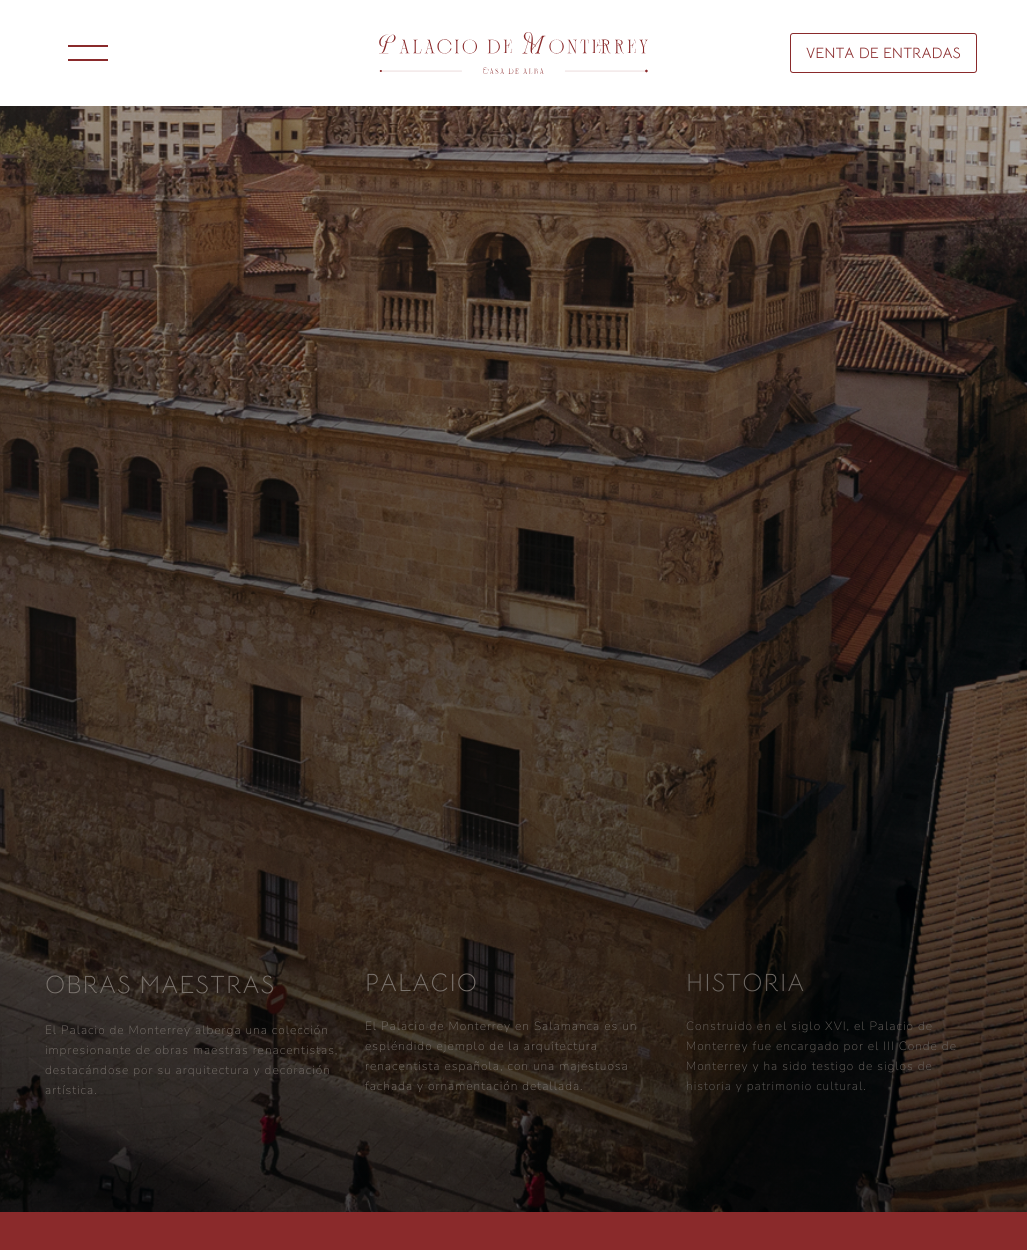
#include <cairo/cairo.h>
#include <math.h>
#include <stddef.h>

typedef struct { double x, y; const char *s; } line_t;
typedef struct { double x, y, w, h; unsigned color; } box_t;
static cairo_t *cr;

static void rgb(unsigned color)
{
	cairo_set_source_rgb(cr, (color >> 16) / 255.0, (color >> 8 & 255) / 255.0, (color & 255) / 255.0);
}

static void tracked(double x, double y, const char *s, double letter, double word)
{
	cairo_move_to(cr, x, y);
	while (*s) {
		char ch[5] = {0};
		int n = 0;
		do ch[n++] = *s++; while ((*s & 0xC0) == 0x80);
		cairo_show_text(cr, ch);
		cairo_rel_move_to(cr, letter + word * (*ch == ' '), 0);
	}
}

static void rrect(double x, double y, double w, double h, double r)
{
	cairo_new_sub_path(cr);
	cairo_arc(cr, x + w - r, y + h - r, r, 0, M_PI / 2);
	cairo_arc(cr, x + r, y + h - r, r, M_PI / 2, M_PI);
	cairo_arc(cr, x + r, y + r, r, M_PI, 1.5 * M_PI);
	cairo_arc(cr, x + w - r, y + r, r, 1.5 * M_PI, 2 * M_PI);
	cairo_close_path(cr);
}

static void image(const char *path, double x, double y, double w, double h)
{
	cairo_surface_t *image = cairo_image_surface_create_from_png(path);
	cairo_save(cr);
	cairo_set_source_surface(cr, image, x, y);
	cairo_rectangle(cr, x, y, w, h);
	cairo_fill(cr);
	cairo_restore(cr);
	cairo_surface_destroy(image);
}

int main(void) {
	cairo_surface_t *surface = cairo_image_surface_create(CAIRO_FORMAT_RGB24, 1027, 1250);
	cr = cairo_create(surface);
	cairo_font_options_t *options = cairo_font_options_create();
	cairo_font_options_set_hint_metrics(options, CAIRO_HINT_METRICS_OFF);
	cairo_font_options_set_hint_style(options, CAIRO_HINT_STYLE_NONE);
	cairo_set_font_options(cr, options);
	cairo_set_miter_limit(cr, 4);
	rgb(0x8a2a2b);
	cairo_paint(cr);
	{
		static const box_t items[] = {
			{0, 0, 1027, 106, 0xffffff},
			{68, 45, 40, 2, 0x8a2a2b},
			{68, 59, 40, 2, 0x8a2a2b},
		};
		for (size_t i = 0; i < sizeof items / sizeof *items; i++) {
			rgb(items[i].color);
			cairo_rectangle(cr, items[i].x, items[i].y, items[i].w, items[i].h);
			cairo_fill(cr);
		}
	}
	image("img/1.png", 379, 32, 269, 42);
	rrect(790.5, 33.5, 186, 39, 2.5);
	cairo_set_line_width(cr, 1);
	cairo_stroke(cr);
	image("img/2.png", 0, 106, 1027, 1106);
	cairo_select_font_face(cr, "Bellota Text", CAIRO_FONT_SLANT_NORMAL, CAIRO_FONT_WEIGHT_NORMAL);
	cairo_set_font_size(cr, 15);
	cairo_move_to(cr, 806, 58);
	cairo_show_text(cr, "VENTA DE ENTRADAS");
	cairo_select_font_face(cr, "Bellota Text Light", CAIRO_FONT_SLANT_NORMAL, CAIRO_FONT_WEIGHT_NORMAL);
	cairo_set_font_size(cr, 25);
	rgb(0x7b746e);
	tracked(45, 993, "OBRAS MAESTRAS", 1, 0);
	cairo_select_font_face(cr, "Nunito Sans ExtraLight", CAIRO_FONT_SLANT_NORMAL, CAIRO_FONT_WEIGHT_NORMAL);
	cairo_set_font_size(cr, 12);
	{
		static const line_t items[] = {
			{45, 1034, "El Palacio de Monterrey alberga una colección"},
			{45, 1054, "impresionante de obras maestras renacentistas,"},
			{45, 1074, "destacándose por su arquitectura y decoración"},
			{45, 1094, "artística."},
		};
		for (size_t i = 0; i < sizeof items / sizeof *items; i++) {
			tracked(items[i].x, items[i].y, items[i].s, 1, 0);
		}
	}
	cairo_select_font_face(cr, "Bellota Text Light", CAIRO_FONT_SLANT_NORMAL, CAIRO_FONT_WEIGHT_NORMAL);
	cairo_set_font_size(cr, 25);
	tracked(365, 991, "PALACIO", 1, 0);
	cairo_select_font_face(cr, "Nunito Sans ExtraLight", CAIRO_FONT_SLANT_NORMAL, CAIRO_FONT_WEIGHT_NORMAL);
	cairo_set_font_size(cr, 12);
	{
		static const line_t items[] = {
			{365, 1030, "El Palacio de Monterrey en Salamanca es un"},
			{365, 1050, "espléndido ejemplo de la arquitectura"},
			{365, 1070, "renacentista española, con una majestuosa"},
			{365, 1090, "fachada y ornamentación detallada."},
		};
		for (size_t i = 0; i < sizeof items / sizeof *items; i++) {
			tracked(items[i].x, items[i].y, items[i].s, 1, 0);
		}
	}
	cairo_select_font_face(cr, "Bellota Text Light", CAIRO_FONT_SLANT_NORMAL, CAIRO_FONT_WEIGHT_NORMAL);
	cairo_set_font_size(cr, 25);
	rgb(0x6e6863);
	tracked(686, 991, "HISTORIA", 1, 0);
	cairo_select_font_face(cr, "Nunito Sans ExtraLight", CAIRO_FONT_SLANT_NORMAL, CAIRO_FONT_WEIGHT_NORMAL);
	cairo_set_font_size(cr, 12);
	{
		static const line_t items[] = {
			{686, 1030, "Construido en el siglo XVI, el Palacio de"},
			{686, 1050, "Monterrey fue encargado por el III Conde de"},
			{686, 1070, "Monterrey y ha sido testigo de siglos de"},
		};
		for (size_t i = 0; i < sizeof items / sizeof *items; i++) {
			tracked(items[i].x, items[i].y, items[i].s, 1, 0);
		}
	}
	rgb(0x666360);
	tracked(686, 1090, "historia y patrimonio cultural.", 1, 0);
	cairo_surface_write_to_png(surface, "page.png");
	cairo_font_options_destroy(options);
	cairo_destroy(cr);
	cairo_surface_destroy(surface);
	return 0;
}
